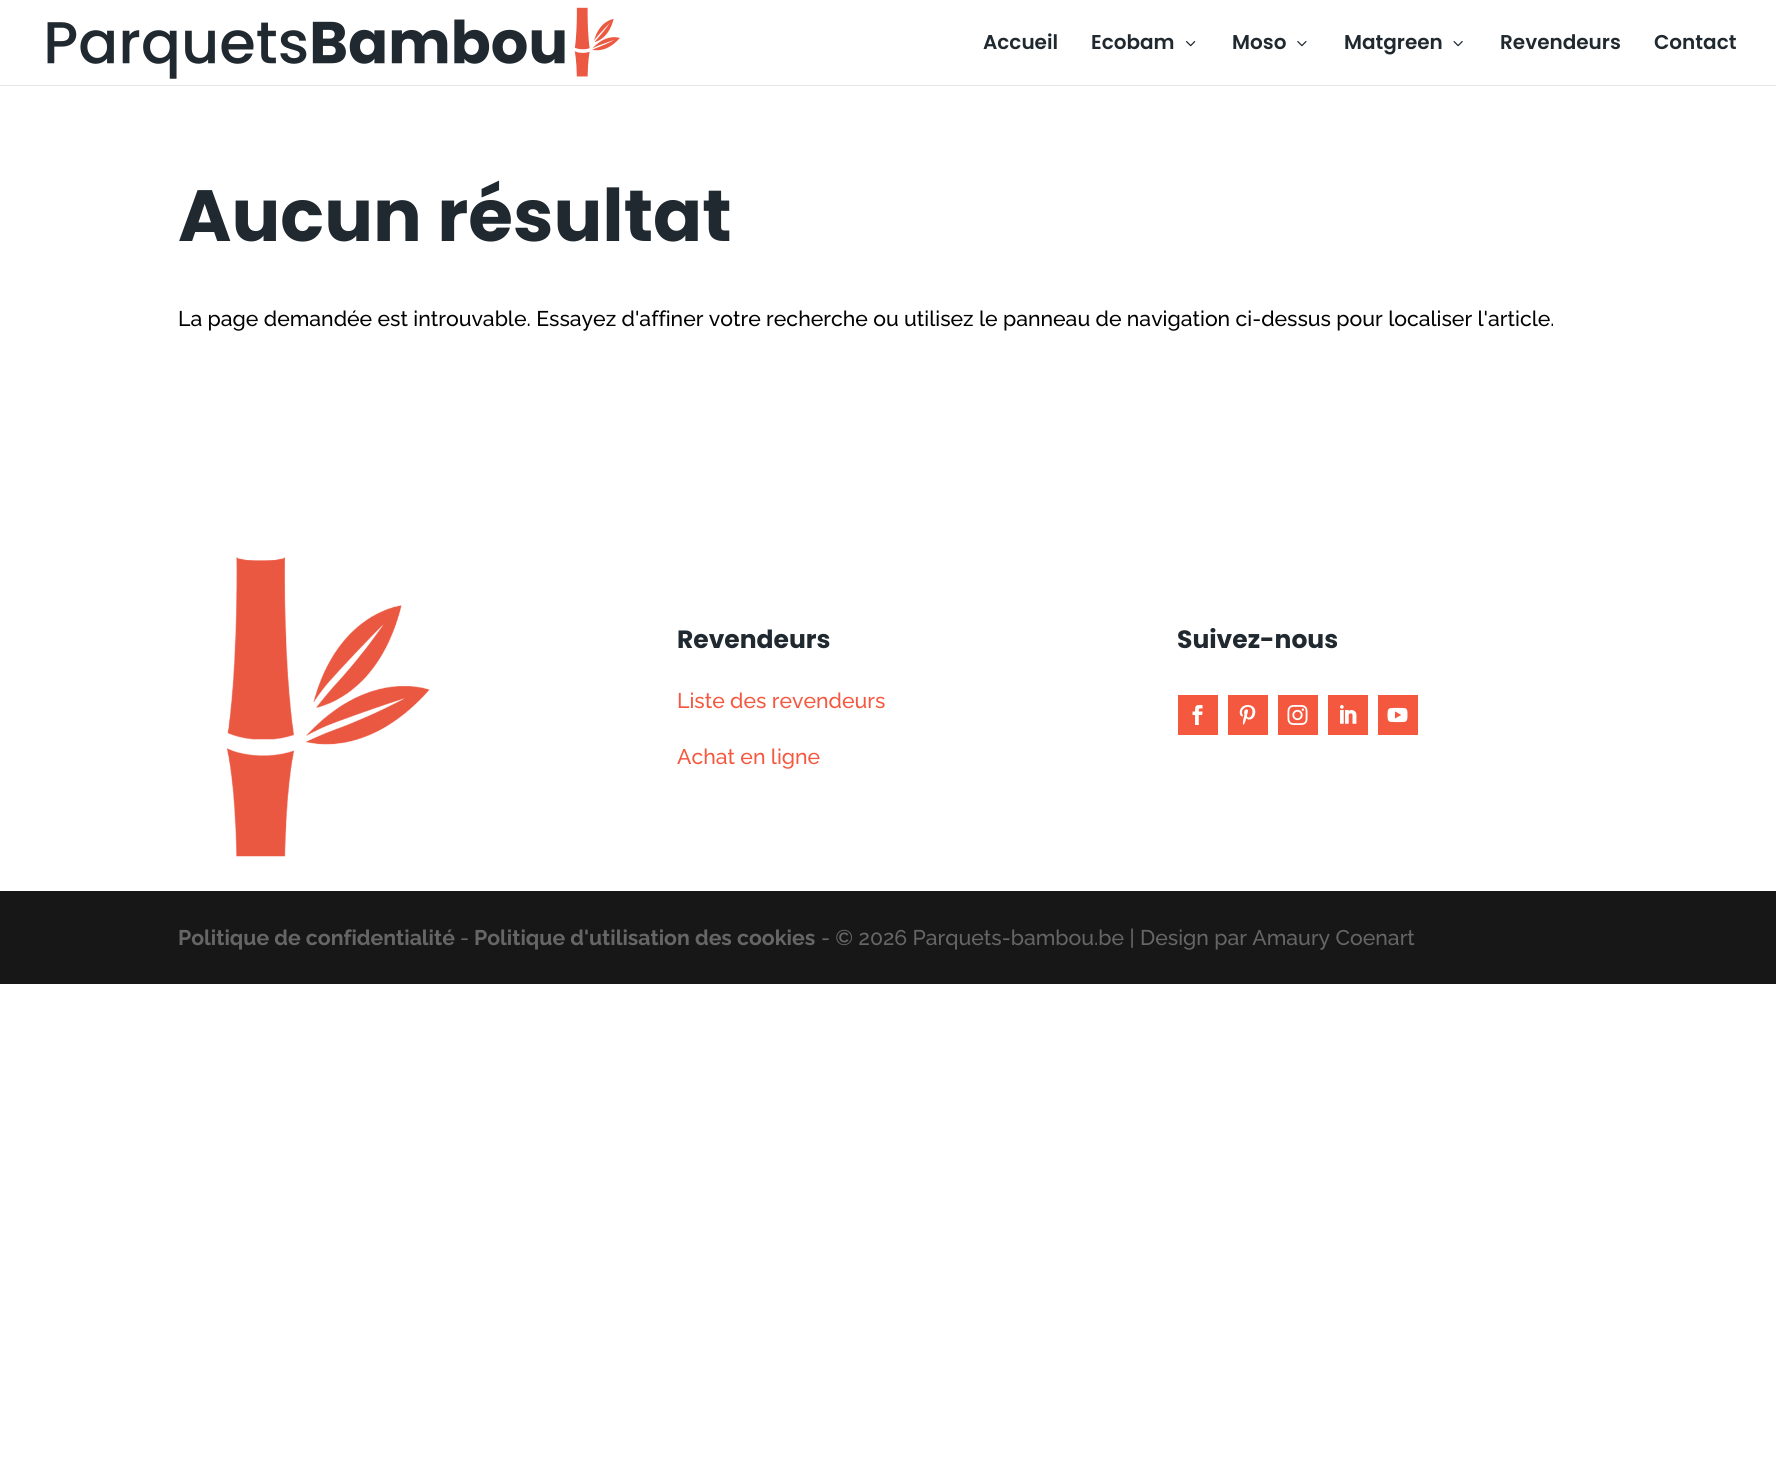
#include <cairo/cairo.h>
#include <math.h>
#include <stddef.h>

typedef struct { double x, y; const char *s; } line_t;
static cairo_t *cr;

static void rgb(unsigned color)
{
	cairo_set_source_rgb(cr, (color >> 16) / 255.0, (color >> 8 & 255) / 255.0, (color & 255) / 255.0);
}

static void image(const char *path, double x, double y, double w, double h)
{
	cairo_surface_t *image = cairo_image_surface_create_from_png(path);
	cairo_save(cr);
	cairo_set_source_surface(cr, image, x, y);
	cairo_rectangle(cr, x, y, w, h);
	cairo_fill(cr);
	cairo_restore(cr);
	cairo_surface_destroy(image);
}

int main(void) {
	cairo_surface_t *surface = cairo_image_surface_create(CAIRO_FORMAT_RGB24, 1776, 1484);
	cr = cairo_create(surface);
	cairo_font_options_t *options = cairo_font_options_create();
	cairo_font_options_set_hint_metrics(options, CAIRO_HINT_METRICS_OFF);
	cairo_font_options_set_hint_style(options, CAIRO_HINT_STYLE_NONE);
	cairo_set_font_options(cr, options);
	cairo_set_miter_limit(cr, 4);
	rgb(0xffffff);
	cairo_paint(cr);
	rgb(0xe6e6e6);
	cairo_rectangle(cr, 0, 85, 1776, 1);
	cairo_fill(cr);
	image("img/1.png", 47, 7, 573, 72);
	image("img/2.png", 1186, 41, 10, 6);
	image("img/3.png", 1297, 41, 10, 6);
	image("img/4.png", 1453, 41, 10, 6);
	image("img/5.png", 227, 557, 203, 300);
	rgb(0xf4583f);
	cairo_rectangle(cr, 1178, 695, 40, 40);
	cairo_fill(cr);
	image("img/6.png", 1192, 705, 11, 20);
	cairo_rectangle(cr, 1228, 695, 40, 40);
	cairo_fill(cr);
	image("img/7.png", 1239, 705, 17, 20);
	cairo_rectangle(cr, 1278, 695, 40, 40);
	cairo_fill(cr);
	image("img/8.png", 1287, 705, 21, 20);
	cairo_rectangle(cr, 1328, 695, 40, 40);
	cairo_fill(cr);
	image("img/9.png", 1340, 705, 17, 19);
	cairo_rectangle(cr, 1378, 695, 40, 40);
	cairo_fill(cr);
	image("img/10.png", 1387, 707, 21, 16);
	rgb(0x171717);
	cairo_rectangle(cr, 0, 891, 1776, 93);
	cairo_fill(cr);
	cairo_select_font_face(cr, "Poppins SemiBold", CAIRO_FONT_SLANT_NORMAL, CAIRO_FONT_WEIGHT_NORMAL);
	cairo_set_font_size(cr, 20);
	rgb(0x20292f);
	{
		static const line_t items[] = {
			{983, 49, "Accueil"},
			{1091, 49, "Ecobam"},
			{1232, 49, "Moso"},
			{1344, 49, "Matgreen"},
			{1500, 49, "Revendeurs"},
			{1654, 49, "Contact"},
		};
		for (size_t i = 0; i < sizeof items / sizeof *items; i++) {
			cairo_move_to(cr, items[i].x, items[i].y);
			cairo_show_text(cr, items[i].s);
		}
	}
	cairo_select_font_face(cr, "Poppins", CAIRO_FONT_SLANT_NORMAL, CAIRO_FONT_WEIGHT_BOLD);
	cairo_set_font_size(cr, 72.5);
	cairo_move_to(cr, 178, 241);
	cairo_show_text(cr, "Aucun résultat");
	cairo_select_font_face(cr, "Raleway Thin", CAIRO_FONT_SLANT_NORMAL, CAIRO_FONT_WEIGHT_NORMAL);
	cairo_set_font_size(cr, 21.25);
	rgb(0x020202);
	cairo_move_to(cr, 178, 326);
	cairo_show_text(cr, "La page demandée est introuvable. Essayez d'affiner votre recherche ou utilisez le panneau de navigation ci-dessus pour localiser l'article.");
	cairo_select_font_face(cr, "Poppins", CAIRO_FONT_SLANT_NORMAL, CAIRO_FONT_WEIGHT_BOLD);
	cairo_set_font_size(cr, 25);
	rgb(0x20292f);
	cairo_move_to(cr, 677, 648);
	cairo_show_text(cr, "Revendeurs");
	cairo_select_font_face(cr, "Raleway Thin", CAIRO_FONT_SLANT_NORMAL, CAIRO_FONT_WEIGHT_NORMAL);
	cairo_set_font_size(cr, 21.25);
	rgb(0xf4583f);
	cairo_move_to(cr, 677, 708);
	cairo_show_text(cr, "Liste des revendeurs");
	cairo_move_to(cr, 677, 764);
	cairo_show_text(cr, "Achat en ligne");
	cairo_select_font_face(cr, "Poppins", CAIRO_FONT_SLANT_NORMAL, CAIRO_FONT_WEIGHT_BOLD);
	cairo_set_font_size(cr, 25);
	rgb(0x20292f);
	cairo_move_to(cr, 1177, 648);
	cairo_show_text(cr, "Suivez-nous");
	cairo_select_font_face(cr, "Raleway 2 Thin", CAIRO_FONT_SLANT_NORMAL, CAIRO_FONT_WEIGHT_NORMAL);
	cairo_set_font_size(cr, 21.25);
	rgb(0x666666);
	cairo_move_to(cr, 178, 945);
	cairo_show_text(cr, "Politique de confidentialité");
	cairo_select_font_face(cr, "Raleway Thin", CAIRO_FONT_SLANT_NORMAL, CAIRO_FONT_WEIGHT_NORMAL);
	cairo_move_to(cr, 460, 945);
	cairo_show_text(cr, "-");
	cairo_select_font_face(cr, "Raleway 2 Thin", CAIRO_FONT_SLANT_NORMAL, CAIRO_FONT_WEIGHT_NORMAL);
	cairo_move_to(cr, 474, 945);
	cairo_show_text(cr, "Politique d'utilisation des cookies");
	cairo_select_font_face(cr, "Raleway Thin", CAIRO_FONT_SLANT_NORMAL, CAIRO_FONT_WEIGHT_NORMAL);
	cairo_move_to(cr, 821, 945);
	cairo_show_text(cr, "- © 2026 Parquets-bambou.be | Design par Amaury Coenart");
	cairo_surface_write_to_png(surface, "page.png");
	cairo_font_options_destroy(options);
	cairo_destroy(cr);
	cairo_surface_destroy(surface);
	return 0;
}
